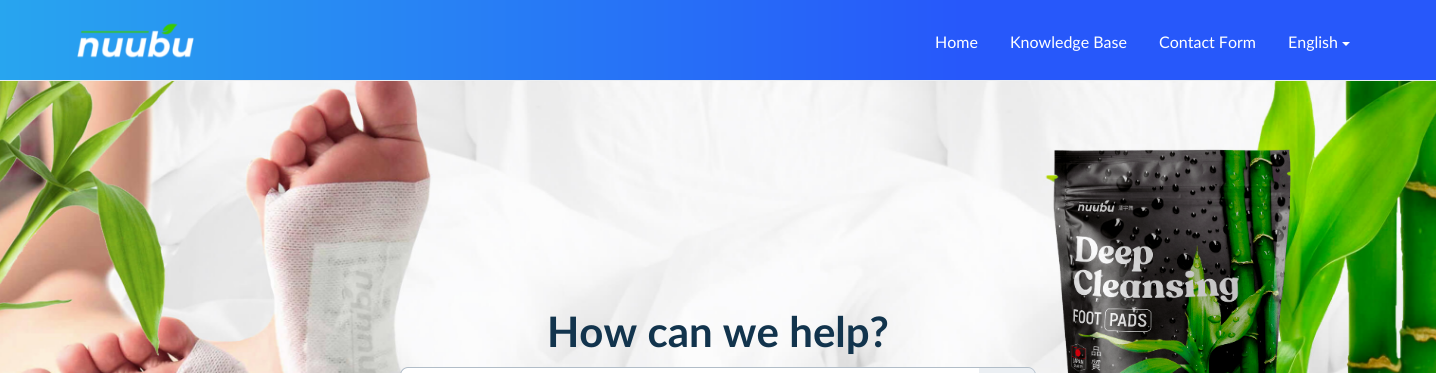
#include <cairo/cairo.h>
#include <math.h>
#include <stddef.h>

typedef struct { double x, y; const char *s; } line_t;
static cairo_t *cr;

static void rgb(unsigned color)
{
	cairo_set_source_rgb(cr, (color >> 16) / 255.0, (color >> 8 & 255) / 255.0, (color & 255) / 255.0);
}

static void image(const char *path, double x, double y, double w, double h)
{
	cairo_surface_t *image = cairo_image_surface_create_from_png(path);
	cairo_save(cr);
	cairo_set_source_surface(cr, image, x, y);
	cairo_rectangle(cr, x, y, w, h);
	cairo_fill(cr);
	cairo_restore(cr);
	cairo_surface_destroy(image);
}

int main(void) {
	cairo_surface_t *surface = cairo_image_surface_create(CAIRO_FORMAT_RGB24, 1436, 373);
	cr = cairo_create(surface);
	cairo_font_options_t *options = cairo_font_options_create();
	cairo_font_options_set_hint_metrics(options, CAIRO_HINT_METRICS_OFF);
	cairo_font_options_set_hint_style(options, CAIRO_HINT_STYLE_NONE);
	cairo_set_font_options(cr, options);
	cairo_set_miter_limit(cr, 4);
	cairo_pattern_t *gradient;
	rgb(0xffffff);
	cairo_paint(cr);
	gradient = cairo_pattern_create_linear(0, 40, 1436, 40);
	cairo_pattern_add_color_stop_rgba(gradient, 0, 0.157, 0.647, 0.937, 1);
	cairo_pattern_add_color_stop_rgba(gradient, 0.67, 0.153, 0.345, 0.98, 1);
	cairo_set_source(cr, gradient);
	cairo_pattern_destroy(gradient);
	cairo_rectangle(cr, 0, 0, 1436, 80);
	cairo_fill(cr);
	rgb(0xebeff3);
	cairo_rectangle(cr, 0, 80, 1436, 1);
	cairo_fill(cr);
	image("img/1.png", 77, 23, 117, 35);
	rgb(0xffffff);
	cairo_new_path(cr);
	cairo_move_to(cr, 1342, 42);
	cairo_line_to(cr, 1350, 42);
	cairo_line_to(cr, 1346, 46);
	cairo_close_path(cr);
	cairo_fill(cr);
	image("img/2.png", 0, 81, 1436, 292);
	image("img/3.png", 1053, 149, 238, 224);
	cairo_new_path(cr);
	cairo_move_to(cr, 408, 368);
	cairo_line_to(cr, 979, 368);
	cairo_line_to(cr, 979, 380);
	cairo_line_to(cr, 408, 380);
	cairo_curve_to(cr, 404, 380, 401, 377, 401, 373);
	cairo_line_to(cr, 401, 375);
	cairo_curve_to(cr, 401, 371, 404, 368, 408, 368);
	cairo_close_path(cr);
	cairo_fill(cr);
	cairo_new_path(cr);
	cairo_move_to(cr, 408, 367.5);
	cairo_line_to(cr, 979.5, 367.5);
	cairo_line_to(cr, 979.5, 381.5);
	cairo_line_to(cr, 408, 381.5);
	cairo_curve_to(cr, 404, 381.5, 400.5, 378, 400.5, 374);
	cairo_line_to(cr, 400.5, 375);
	cairo_curve_to(cr, 400.5, 371, 404, 367.5, 408, 367.5);
	cairo_close_path(cr);
	rgb(0xb1bdc8);
	cairo_set_line_width(cr, 1);
	cairo_stroke(cr);
	rgb(0xebeff3);
	cairo_new_path(cr);
	cairo_move_to(cr, 979, 367);
	cairo_line_to(cr, 1028, 367);
	cairo_curve_to(cr, 1032.5, 367, 1036, 370.5, 1036, 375);
	cairo_line_to(cr, 1036, 373);
	cairo_curve_to(cr, 1036, 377.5, 1032.5, 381, 1028, 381);
	cairo_line_to(cr, 979, 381);
	cairo_close_path(cr);
	cairo_fill(cr);
	rgb(0xb1bdc8);
	cairo_set_fill_rule(cr, CAIRO_FILL_RULE_EVEN_ODD);
	cairo_new_path(cr);
	cairo_move_to(cr, 979, 367);
	cairo_line_to(cr, 1028, 367);
	cairo_curve_to(cr, 1032, 367, 1036, 371, 1036, 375);
	cairo_line_to(cr, 1036, 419);
	cairo_curve_to(cr, 1036, 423, 1032, 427, 1028, 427);
	cairo_line_to(cr, 979, 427);
	cairo_close_path(cr);
	cairo_move_to(cr, 979, 368);
	cairo_line_to(cr, 1028, 368);
	cairo_curve_to(cr, 1032, 368, 1035, 371, 1035, 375);
	cairo_line_to(cr, 1035, 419);
	cairo_curve_to(cr, 1035, 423, 1032, 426, 1028, 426);
	cairo_line_to(cr, 979, 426);
	cairo_close_path(cr);
	cairo_fill(cr);
	cairo_select_font_face(cr, "Lato", CAIRO_FONT_SLANT_NORMAL, CAIRO_FONT_WEIGHT_NORMAL);
	cairo_set_font_size(cr, 16);
	rgb(0xffffff);
	{
		static const line_t items[] = {
			{935, 48, "Home"},
			{1010, 48, "Knowledge Base"},
			{1159, 48, "Contact Form"},
			{1288, 48, "English"},
		};
		for (size_t i = 0; i < sizeof items / sizeof *items; i++) {
			cairo_move_to(cr, items[i].x, items[i].y);
			cairo_show_text(cr, items[i].s);
		}
	}
	cairo_select_font_face(cr, "Lato", CAIRO_FONT_SLANT_NORMAL, CAIRO_FONT_WEIGHT_BOLD);
	cairo_set_font_size(cr, 42);
	rgb(0x12344d);
	cairo_move_to(cr, 547, 347);
	cairo_show_text(cr, "How can we help?");
	cairo_surface_write_to_png(surface, "page.png");
	cairo_font_options_destroy(options);
	cairo_destroy(cr);
	cairo_surface_destroy(surface);
	return 0;
}
